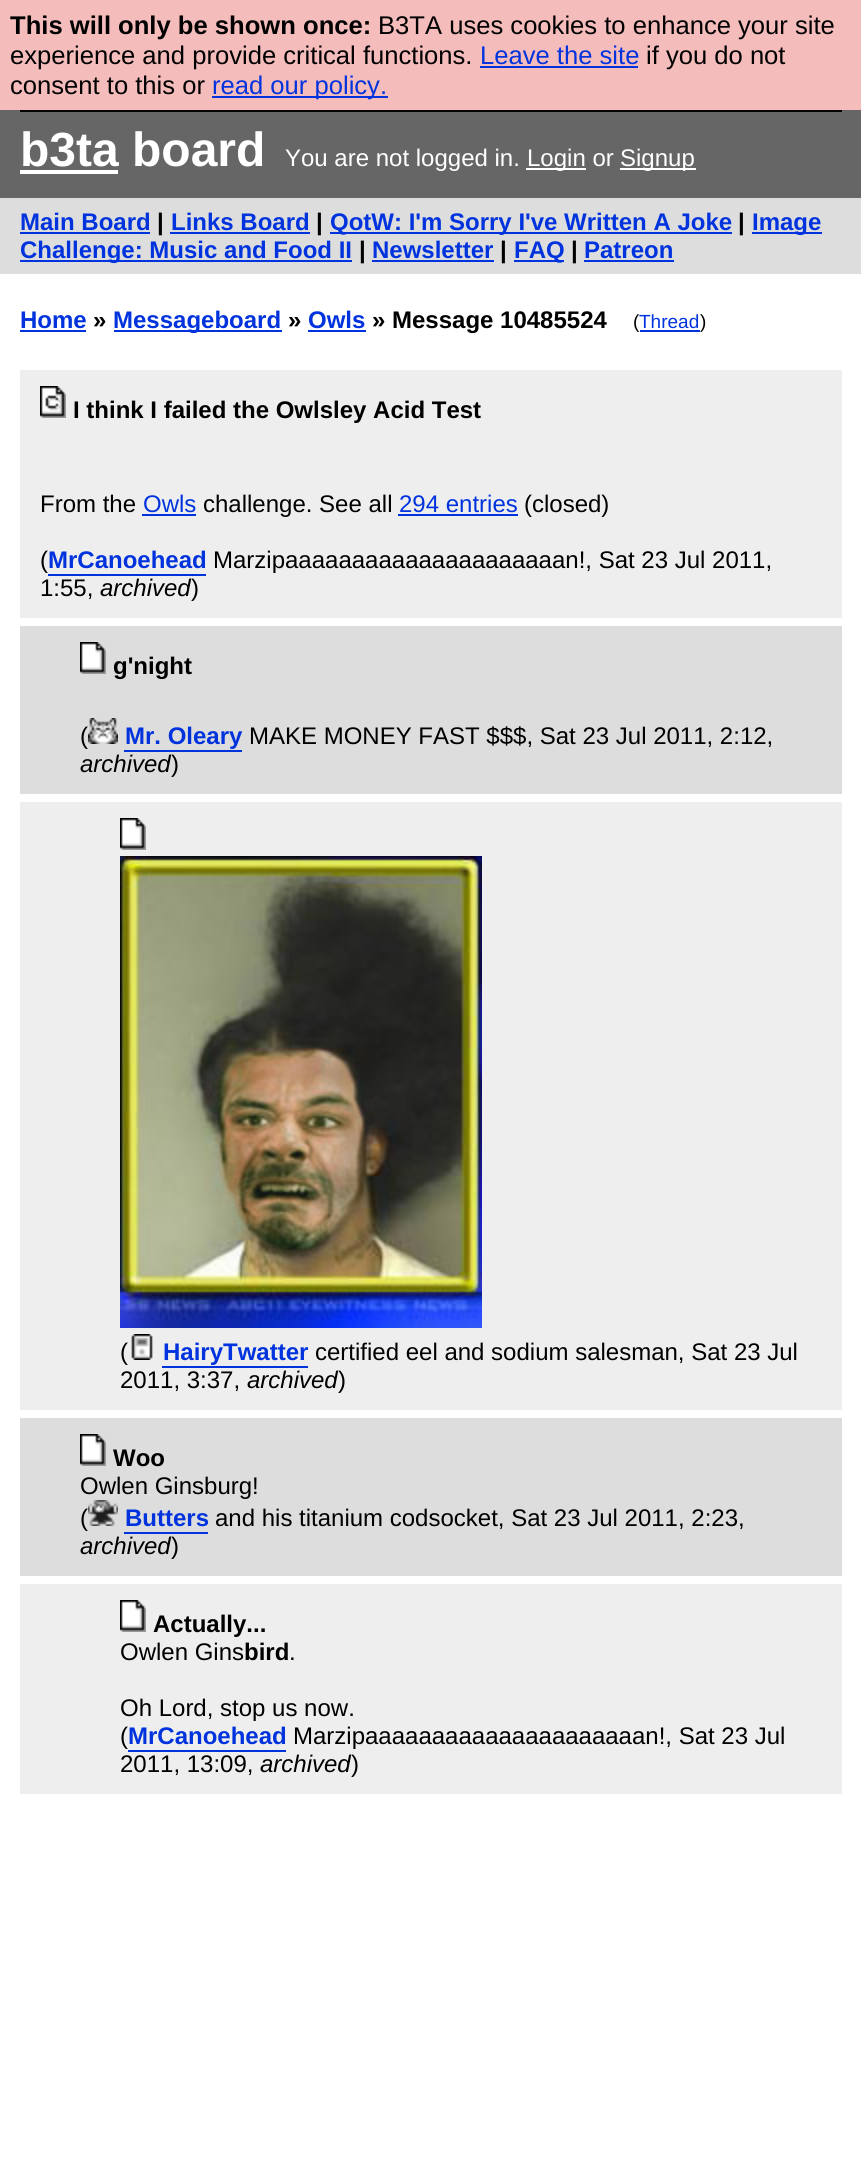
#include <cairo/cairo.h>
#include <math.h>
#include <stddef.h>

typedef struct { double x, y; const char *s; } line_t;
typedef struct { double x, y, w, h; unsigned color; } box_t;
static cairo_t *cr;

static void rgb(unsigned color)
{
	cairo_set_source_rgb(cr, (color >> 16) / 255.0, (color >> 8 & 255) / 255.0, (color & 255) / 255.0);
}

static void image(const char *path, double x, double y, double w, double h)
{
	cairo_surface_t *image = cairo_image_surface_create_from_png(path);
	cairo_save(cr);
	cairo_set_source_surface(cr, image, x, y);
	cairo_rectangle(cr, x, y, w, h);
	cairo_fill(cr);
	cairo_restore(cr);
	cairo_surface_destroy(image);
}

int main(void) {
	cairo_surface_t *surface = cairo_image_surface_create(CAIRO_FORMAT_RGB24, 861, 2169);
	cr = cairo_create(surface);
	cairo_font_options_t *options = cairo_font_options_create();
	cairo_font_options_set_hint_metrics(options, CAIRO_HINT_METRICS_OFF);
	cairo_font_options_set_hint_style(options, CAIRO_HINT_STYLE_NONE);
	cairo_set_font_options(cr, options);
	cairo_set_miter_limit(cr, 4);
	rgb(0xffffff);
	cairo_paint(cr);
	rgb(0x666666);
	cairo_rectangle(cr, 0, 110, 861, 88);
	cairo_fill(cr);
	cairo_rectangle(cr, 21, 21, 820, 90);
	rgb(0x000000);
	cairo_stroke(cr);
	{
		static const box_t items[] = {
			{0, 0, 861, 110, 0xf5bcbc},
			{480, 66, 158, 2, 0x0033dd},
			{212, 96, 176, 2, 0x0033dd},
			{20, 170, 98, 4, 0xffffff},
			{526, 168, 60, 2, 0xffffff},
			{620, 168, 76, 2, 0xffffff},
			{0, 198, 861, 76, 0xdddddd},
			{20, 232, 130, 2, 0x0033dd},
			{170, 232, 140, 2, 0x0033dd},
			{330, 232, 402, 2, 0x0033dd},
			{752, 232, 70, 2, 0x0033dd},
			{20, 260, 332, 2, 0x0033dd},
			{372, 260, 122, 2, 0x0033dd},
			{514, 260, 50, 2, 0x0033dd},
			{584, 260, 90, 2, 0x0033dd},
			{20, 330, 66, 2, 0x0033dd},
			{114, 330, 168, 2, 0x0033dd},
			{308, 330, 58, 2, 0x0033dd},
			{640, 330, 60, 2, 0x0033dd},
			{20, 370, 822, 248, 0xeeeeee},
		};
		for (size_t i = 0; i < sizeof items / sizeof *items; i++) {
			rgb(items[i].color);
			cairo_rectangle(cr, items[i].x, items[i].y, items[i].w, items[i].h);
			cairo_fill(cr);
		}
	}
	image("img/1.png", 40, 386, 26, 32);
	{
		static const box_t items[] = {
			{142, 514, 54, 2, 0x0033dd},
			{398, 514, 120, 2, 0x0033dd},
			{48, 574, 158, 2, 0x0033dd},
			{20, 626, 822, 168, 0xdddddd},
		};
		for (size_t i = 0; i < sizeof items / sizeof *items; i++) {
			rgb(items[i].color);
			cairo_rectangle(cr, items[i].x, items[i].y, items[i].w, items[i].h);
			cairo_fill(cr);
		}
	}
	image("img/2.png", 80, 642, 26, 32);
	image("img/3.png", 88, 718, 30, 26);
	rgb(0x0033dd);
	cairo_rectangle(cr, 124, 750, 118, 2);
	cairo_fill(cr);
	rgb(0xeeeeee);
	cairo_rectangle(cr, 20, 802, 822, 608);
	cairo_fill(cr);
	image("img/4.png", 120, 818, 26, 32);
	image("img/5.png", 120, 856, 362, 472);
	image("img/6.png", 131, 1334, 22, 26);
	rgb(0x0033dd);
	cairo_rectangle(cr, 162, 1366, 146, 2);
	cairo_fill(cr);
	rgb(0xdddddd);
	cairo_rectangle(cr, 20, 1418, 822, 158);
	cairo_fill(cr);
	image("img/2.png", 80, 1434, 26, 32);
	image("img/7.png", 88, 1500, 30, 26);
	rgb(0x0033dd);
	cairo_rectangle(cr, 124, 1532, 84, 2);
	cairo_fill(cr);
	rgb(0xeeeeee);
	cairo_rectangle(cr, 20, 1584, 822, 210);
	cairo_fill(cr);
	image("img/4.png", 120, 1600, 26, 32);
	rgb(0x0033dd);
	cairo_rectangle(cr, 128, 1750, 158, 2);
	cairo_fill(cr);
	cairo_select_font_face(cr, "Liberation Sans", CAIRO_FONT_SLANT_NORMAL, CAIRO_FONT_WEIGHT_BOLD);
	cairo_set_font_size(cr, 25.6);
	rgb(0x000000);
	cairo_move_to(cr, 10, 34);
	cairo_show_text(cr, "This will only be shown once:");
	cairo_select_font_face(cr, "Liberation Sans", CAIRO_FONT_SLANT_NORMAL, CAIRO_FONT_WEIGHT_NORMAL);
	cairo_move_to(cr, 378, 34);
	cairo_show_text(cr, "B3TA uses cookies to enhance your site");
	cairo_move_to(cr, 10, 64);
	cairo_show_text(cr, "experience and provide critical functions.");
	rgb(0x0033dd);
	cairo_move_to(cr, 480, 64);
	cairo_show_text(cr, "Leave the site");
	rgb(0x000000);
	cairo_move_to(cr, 646, 64);
	cairo_show_text(cr, "if you do not");
	cairo_move_to(cr, 10, 94);
	cairo_show_text(cr, "consent to this or");
	rgb(0x0033dd);
	cairo_move_to(cr, 212, 94);
	cairo_show_text(cr, "read our policy.");
	cairo_select_font_face(cr, "Liberation Sans", CAIRO_FONT_SLANT_NORMAL, CAIRO_FONT_WEIGHT_BOLD);
	cairo_set_font_size(cr, 48);
	rgb(0xffffff);
	cairo_move_to(cr, 20, 166);
	cairo_show_text(cr, "b3ta board");
	cairo_select_font_face(cr, "Liberation Sans", CAIRO_FONT_SLANT_NORMAL, CAIRO_FONT_WEIGHT_NORMAL);
	cairo_set_font_size(cr, 24);
	{
		static const line_t items[] = {
			{285, 166, "You are not logged in."},
			{527, 166, "Login or"},
			{620, 166, "Signup"},
		};
		for (size_t i = 0; i < sizeof items / sizeof *items; i++) {
			cairo_move_to(cr, items[i].x, items[i].y);
			cairo_show_text(cr, items[i].s);
		}
	}
	cairo_select_font_face(cr, "Liberation Sans", CAIRO_FONT_SLANT_NORMAL, CAIRO_FONT_WEIGHT_BOLD);
	rgb(0x0033dd);
	cairo_move_to(cr, 20, 230);
	cairo_show_text(cr, "Main Board");
	rgb(0x000000);
	cairo_move_to(cr, 157, 230);
	cairo_show_text(cr, "|");
	rgb(0x0033dd);
	cairo_move_to(cr, 171, 230);
	cairo_show_text(cr, "Links Board");
	rgb(0x000000);
	cairo_move_to(cr, 316, 230);
	cairo_show_text(cr, "|");
	rgb(0x0033dd);
	cairo_move_to(cr, 330, 230);
	cairo_show_text(cr, "QotW: I'm Sorry I've Written A Joke");
	rgb(0x000000);
	cairo_move_to(cr, 738, 230);
	cairo_show_text(cr, "|");
	rgb(0x0033dd);
	cairo_move_to(cr, 752, 230);
	cairo_show_text(cr, "Image");
	cairo_move_to(cr, 20, 258);
	cairo_show_text(cr, "Challenge: Music and Food II");
	rgb(0x000000);
	cairo_move_to(cr, 359, 258);
	cairo_show_text(cr, "|");
	rgb(0x0033dd);
	cairo_move_to(cr, 372, 258);
	cairo_show_text(cr, "Newsletter");
	rgb(0x000000);
	cairo_move_to(cr, 500, 258);
	cairo_show_text(cr, "|");
	rgb(0x0033dd);
	cairo_move_to(cr, 514, 258);
	cairo_show_text(cr, "FAQ");
	rgb(0x000000);
	cairo_move_to(cr, 571, 258);
	cairo_show_text(cr, "|");
	rgb(0x0033dd);
	cairo_move_to(cr, 584, 258);
	cairo_show_text(cr, "Patreon");
	cairo_move_to(cr, 20, 328);
	cairo_show_text(cr, "Home");
	rgb(0x000000);
	cairo_move_to(cr, 93, 328);
	cairo_show_text(cr, "»");
	rgb(0x0033dd);
	cairo_move_to(cr, 113, 328);
	cairo_show_text(cr, "Messageboard");
	rgb(0x000000);
	cairo_move_to(cr, 288, 328);
	cairo_show_text(cr, "»");
	rgb(0x0033dd);
	cairo_move_to(cr, 308, 328);
	cairo_show_text(cr, "Owls");
	rgb(0x000000);
	cairo_move_to(cr, 372, 328);
	cairo_show_text(cr, "» Message 10485524");
	cairo_select_font_face(cr, "Liberation Sans", CAIRO_FONT_SLANT_NORMAL, CAIRO_FONT_WEIGHT_NORMAL);
	cairo_set_font_size(cr, 19);
	cairo_move_to(cr, 633, 328);
	cairo_show_text(cr, "(");
	rgb(0x0033dd);
	cairo_move_to(cr, 639, 328);
	cairo_show_text(cr, "Thread");
	rgb(0x000000);
	cairo_move_to(cr, 700, 328);
	cairo_show_text(cr, ")");
	cairo_select_font_face(cr, "Liberation Sans", CAIRO_FONT_SLANT_NORMAL, CAIRO_FONT_WEIGHT_BOLD);
	cairo_set_font_size(cr, 24);
	cairo_move_to(cr, 73, 418);
	cairo_show_text(cr, "I think I failed the Owlsley Acid Test");
	cairo_select_font_face(cr, "Liberation Sans", CAIRO_FONT_SLANT_NORMAL, CAIRO_FONT_WEIGHT_NORMAL);
	cairo_move_to(cr, 40, 512);
	cairo_show_text(cr, "From the");
	rgb(0x0033dd);
	cairo_move_to(cr, 143, 512);
	cairo_show_text(cr, "Owls");
	rgb(0x000000);
	cairo_move_to(cr, 203, 512);
	cairo_show_text(cr, "challenge. See all");
	rgb(0x0033dd);
	cairo_move_to(cr, 399, 512);
	cairo_show_text(cr, "294 entries");
	rgb(0x000000);
	cairo_move_to(cr, 524, 512);
	cairo_show_text(cr, "(closed)");
	cairo_move_to(cr, 40, 568);
	cairo_show_text(cr, "(");
	cairo_select_font_face(cr, "Liberation Sans", CAIRO_FONT_SLANT_NORMAL, CAIRO_FONT_WEIGHT_BOLD);
	rgb(0x0033dd);
	cairo_move_to(cr, 48, 568);
	cairo_show_text(cr, "MrCanoehead");
	cairo_select_font_face(cr, "Liberation Sans", CAIRO_FONT_SLANT_NORMAL, CAIRO_FONT_WEIGHT_NORMAL);
	rgb(0x000000);
	cairo_move_to(cr, 213, 568);
	cairo_show_text(cr, "Marzipaaaaaaaaaaaaaaaaaaaaan!, Sat 23 Jul 2011,");
	cairo_move_to(cr, 40, 596);
	cairo_show_text(cr, "1:55,");
	cairo_select_font_face(cr, "Liberation Sans", CAIRO_FONT_SLANT_ITALIC, CAIRO_FONT_WEIGHT_NORMAL);
	cairo_move_to(cr, 100, 596);
	cairo_show_text(cr, "archived");
	cairo_select_font_face(cr, "Liberation Sans", CAIRO_FONT_SLANT_NORMAL, CAIRO_FONT_WEIGHT_NORMAL);
	cairo_move_to(cr, 191, 596);
	cairo_show_text(cr, ")");
	cairo_select_font_face(cr, "Liberation Sans", CAIRO_FONT_SLANT_NORMAL, CAIRO_FONT_WEIGHT_BOLD);
	cairo_move_to(cr, 113, 674);
	cairo_show_text(cr, "g'night");
	cairo_select_font_face(cr, "Liberation Sans", CAIRO_FONT_SLANT_NORMAL, CAIRO_FONT_WEIGHT_NORMAL);
	cairo_move_to(cr, 80, 744);
	cairo_show_text(cr, "(");
	cairo_select_font_face(cr, "Liberation Sans", CAIRO_FONT_SLANT_NORMAL, CAIRO_FONT_WEIGHT_BOLD);
	rgb(0x0033dd);
	cairo_move_to(cr, 125, 744);
	cairo_show_text(cr, "Mr. Oleary");
	cairo_select_font_face(cr, "Liberation Sans", CAIRO_FONT_SLANT_NORMAL, CAIRO_FONT_WEIGHT_NORMAL);
	rgb(0x000000);
	cairo_move_to(cr, 249, 744);
	cairo_show_text(cr, "MAKE MONEY FAST $$$, Sat 23 Jul 2011, 2:12,");
	cairo_select_font_face(cr, "Liberation Sans", CAIRO_FONT_SLANT_ITALIC, CAIRO_FONT_WEIGHT_NORMAL);
	cairo_move_to(cr, 80, 772);
	cairo_show_text(cr, "archived");
	cairo_select_font_face(cr, "Liberation Sans", CAIRO_FONT_SLANT_NORMAL, CAIRO_FONT_WEIGHT_NORMAL);
	cairo_move_to(cr, 171, 772);
	cairo_show_text(cr, ")");
	cairo_move_to(cr, 120, 1360);
	cairo_show_text(cr, "(");
	cairo_select_font_face(cr, "Liberation Sans", CAIRO_FONT_SLANT_NORMAL, CAIRO_FONT_WEIGHT_BOLD);
	rgb(0x0033dd);
	cairo_move_to(cr, 163, 1360);
	cairo_show_text(cr, "HairyTwatter");
	cairo_select_font_face(cr, "Liberation Sans", CAIRO_FONT_SLANT_NORMAL, CAIRO_FONT_WEIGHT_NORMAL);
	rgb(0x000000);
	cairo_move_to(cr, 315, 1360);
	cairo_show_text(cr, "certified eel and sodium salesman, Sat 23 Jul");
	cairo_move_to(cr, 120, 1388);
	cairo_show_text(cr, "2011, 3:37,");
	cairo_select_font_face(cr, "Liberation Sans", CAIRO_FONT_SLANT_ITALIC, CAIRO_FONT_WEIGHT_NORMAL);
	cairo_move_to(cr, 247, 1388);
	cairo_show_text(cr, "archived");
	cairo_select_font_face(cr, "Liberation Sans", CAIRO_FONT_SLANT_NORMAL, CAIRO_FONT_WEIGHT_NORMAL);
	cairo_move_to(cr, 338, 1388);
	cairo_show_text(cr, ")");
	cairo_select_font_face(cr, "Liberation Sans", CAIRO_FONT_SLANT_NORMAL, CAIRO_FONT_WEIGHT_BOLD);
	cairo_move_to(cr, 113, 1466);
	cairo_show_text(cr, "Woo");
	cairo_select_font_face(cr, "Liberation Sans", CAIRO_FONT_SLANT_NORMAL, CAIRO_FONT_WEIGHT_NORMAL);
	cairo_move_to(cr, 80, 1494);
	cairo_show_text(cr, "Owlen Ginsburg!");
	cairo_move_to(cr, 80, 1526);
	cairo_show_text(cr, "(");
	cairo_select_font_face(cr, "Liberation Sans", CAIRO_FONT_SLANT_NORMAL, CAIRO_FONT_WEIGHT_BOLD);
	rgb(0x0033dd);
	cairo_move_to(cr, 125, 1526);
	cairo_show_text(cr, "Butters");
	cairo_select_font_face(cr, "Liberation Sans", CAIRO_FONT_SLANT_NORMAL, CAIRO_FONT_WEIGHT_NORMAL);
	rgb(0x000000);
	cairo_move_to(cr, 215, 1526);
	cairo_show_text(cr, "and his titanium codsocket, Sat 23 Jul 2011, 2:23,");
	cairo_select_font_face(cr, "Liberation Sans", CAIRO_FONT_SLANT_ITALIC, CAIRO_FONT_WEIGHT_NORMAL);
	cairo_move_to(cr, 80, 1554);
	cairo_show_text(cr, "archived");
	cairo_select_font_face(cr, "Liberation Sans", CAIRO_FONT_SLANT_NORMAL, CAIRO_FONT_WEIGHT_NORMAL);
	cairo_move_to(cr, 171, 1554);
	cairo_show_text(cr, ")");
	cairo_select_font_face(cr, "Liberation Sans", CAIRO_FONT_SLANT_NORMAL, CAIRO_FONT_WEIGHT_BOLD);
	cairo_move_to(cr, 153, 1632);
	cairo_show_text(cr, "Actually...");
	cairo_select_font_face(cr, "Liberation Sans", CAIRO_FONT_SLANT_NORMAL, CAIRO_FONT_WEIGHT_NORMAL);
	cairo_move_to(cr, 120, 1660);
	cairo_show_text(cr, "Owlen Gins");
	cairo_select_font_face(cr, "Liberation Sans", CAIRO_FONT_SLANT_NORMAL, CAIRO_FONT_WEIGHT_BOLD);
	cairo_move_to(cr, 244, 1660);
	cairo_show_text(cr, "bird");
	cairo_select_font_face(cr, "Liberation Sans", CAIRO_FONT_SLANT_NORMAL, CAIRO_FONT_WEIGHT_NORMAL);
	{
		static const line_t items[] = {
			{289, 1660, "."},
			{120, 1716, "Oh Lord, stop us now."},
			{120, 1744, "("},
		};
		for (size_t i = 0; i < sizeof items / sizeof *items; i++) {
			cairo_move_to(cr, items[i].x, items[i].y);
			cairo_show_text(cr, items[i].s);
		}
	}
	cairo_select_font_face(cr, "Liberation Sans", CAIRO_FONT_SLANT_NORMAL, CAIRO_FONT_WEIGHT_BOLD);
	rgb(0x0033dd);
	cairo_move_to(cr, 128, 1744);
	cairo_show_text(cr, "MrCanoehead");
	cairo_select_font_face(cr, "Liberation Sans", CAIRO_FONT_SLANT_NORMAL, CAIRO_FONT_WEIGHT_NORMAL);
	rgb(0x000000);
	cairo_move_to(cr, 293, 1744);
	cairo_show_text(cr, "Marzipaaaaaaaaaaaaaaaaaaaaan!, Sat 23 Jul");
	cairo_move_to(cr, 120, 1772);
	cairo_show_text(cr, "2011, 13:09,");
	cairo_select_font_face(cr, "Liberation Sans", CAIRO_FONT_SLANT_ITALIC, CAIRO_FONT_WEIGHT_NORMAL);
	cairo_move_to(cr, 260, 1772);
	cairo_show_text(cr, "archived");
	cairo_select_font_face(cr, "Liberation Sans", CAIRO_FONT_SLANT_NORMAL, CAIRO_FONT_WEIGHT_NORMAL);
	cairo_move_to(cr, 351, 1772);
	cairo_show_text(cr, ")");
	cairo_surface_write_to_png(surface, "page.png");
	cairo_font_options_destroy(options);
	cairo_destroy(cr);
	cairo_surface_destroy(surface);
	return 0;
}
